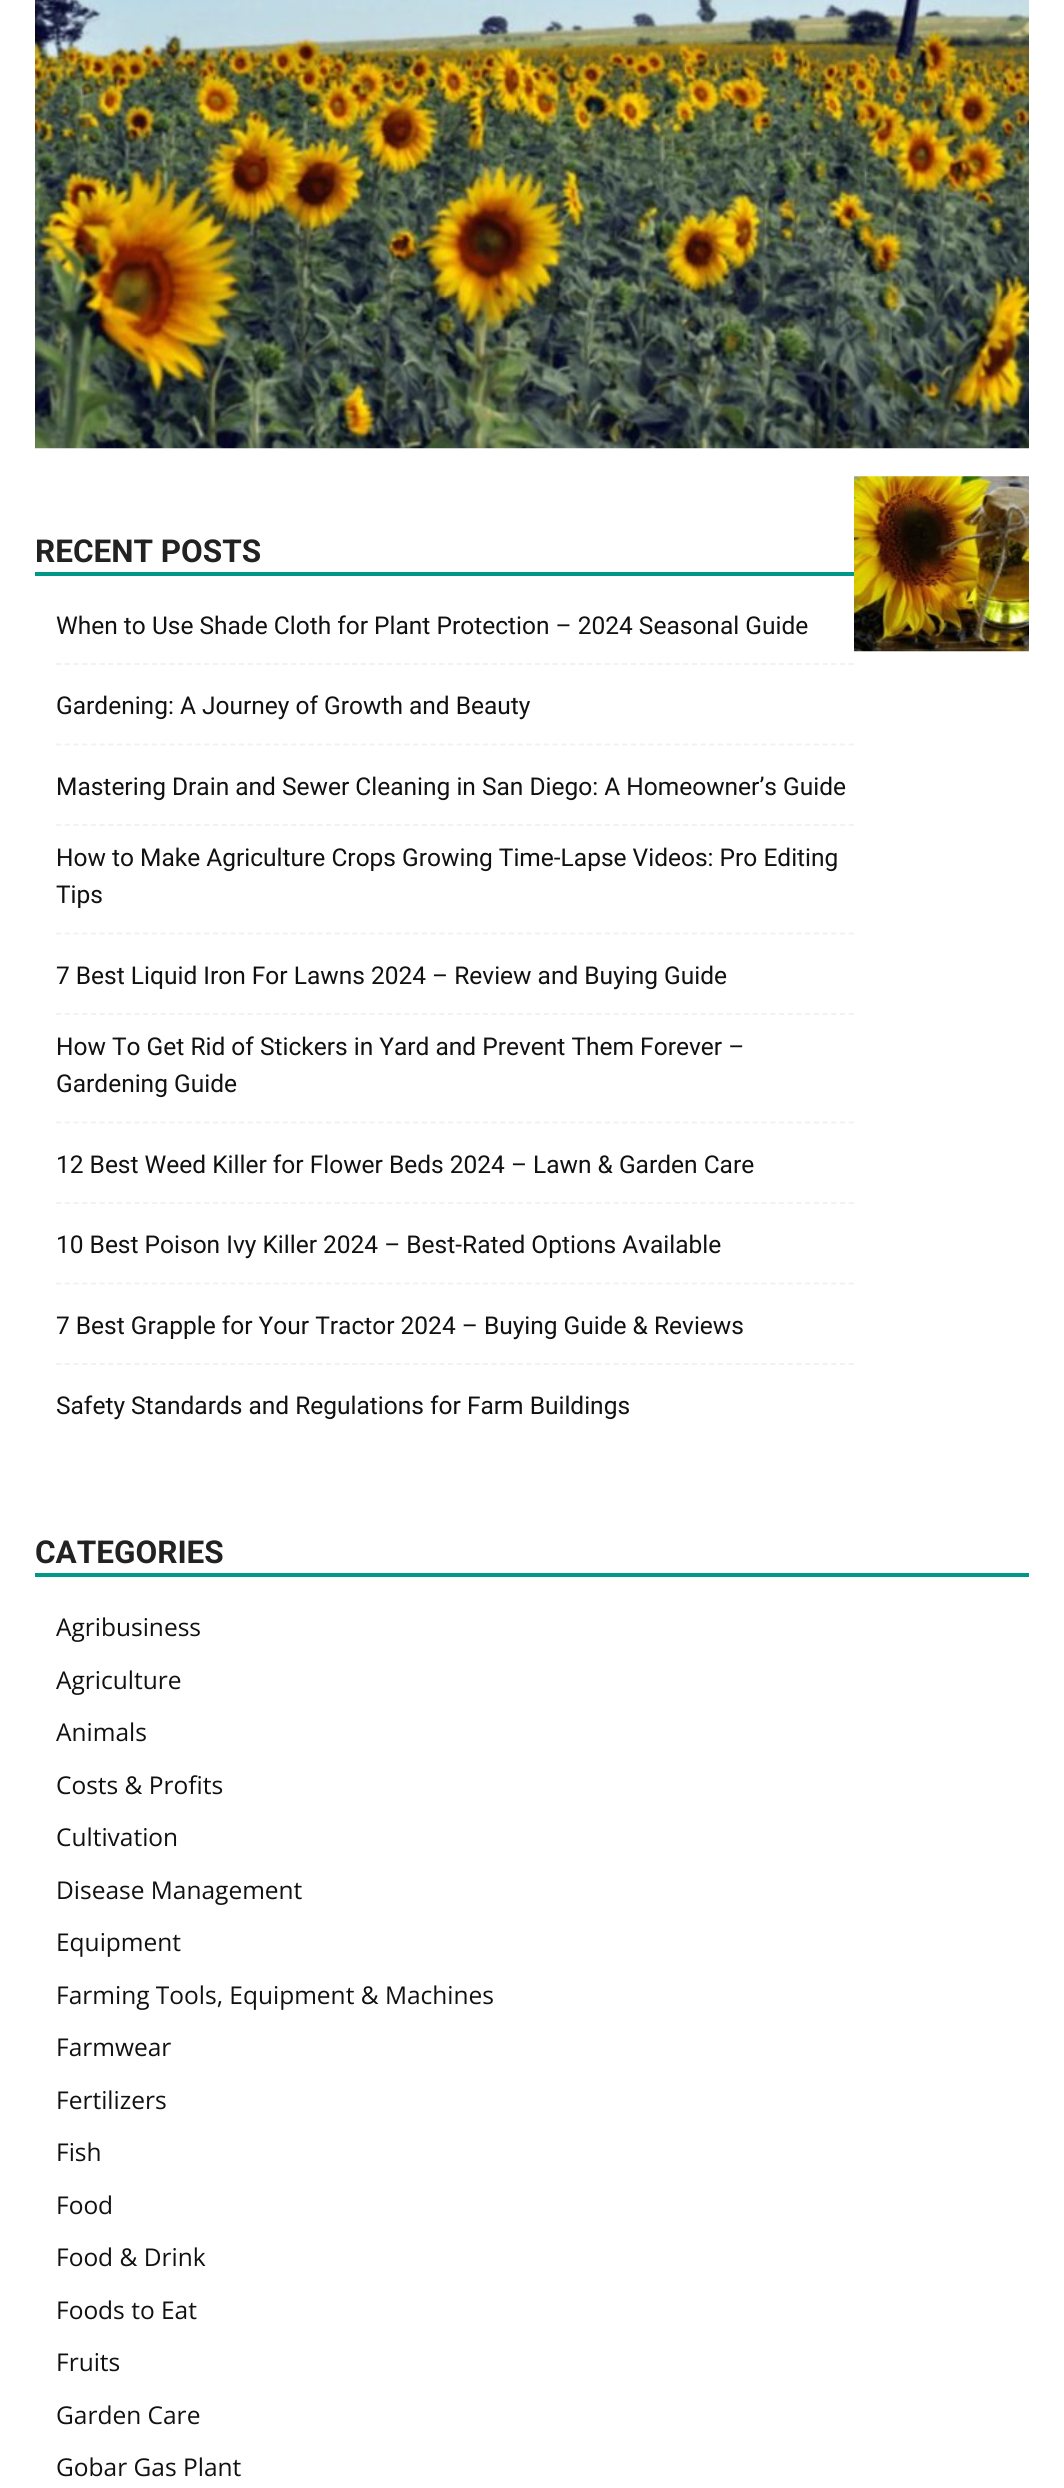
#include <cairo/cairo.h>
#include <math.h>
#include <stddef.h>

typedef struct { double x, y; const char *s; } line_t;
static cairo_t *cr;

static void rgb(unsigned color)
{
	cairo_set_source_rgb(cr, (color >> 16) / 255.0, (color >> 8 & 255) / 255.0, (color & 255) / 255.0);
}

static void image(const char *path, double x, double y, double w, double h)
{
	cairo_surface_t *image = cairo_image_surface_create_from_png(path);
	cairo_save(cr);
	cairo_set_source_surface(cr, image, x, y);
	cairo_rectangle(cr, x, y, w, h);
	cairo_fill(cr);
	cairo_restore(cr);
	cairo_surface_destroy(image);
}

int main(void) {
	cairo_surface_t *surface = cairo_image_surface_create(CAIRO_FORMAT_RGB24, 1064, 2488);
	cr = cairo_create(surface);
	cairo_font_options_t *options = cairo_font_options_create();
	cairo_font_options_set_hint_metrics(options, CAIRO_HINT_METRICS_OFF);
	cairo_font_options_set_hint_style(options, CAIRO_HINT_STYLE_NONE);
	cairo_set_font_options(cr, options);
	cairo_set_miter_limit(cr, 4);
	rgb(0xffffff);
	cairo_paint(cr);
	image("img/1.png", 35, 0, 994, 449);
	image("img/2.png", 854, 476, 175, 176);
	rgb(0x009688);
	cairo_rectangle(cr, 35, 572, 819, 4);
	cairo_fill(cr);
	cairo_new_path(cr);
	cairo_move_to(cr, 56, 664);
	cairo_line_to(cr, 854, 664);
	rgb(0xf1f1f1);
	cairo_set_line_width(cr, 1.8);
	cairo_set_dash(cr, (double[]){5.25, 3.46}, 2, 0);
	cairo_stroke(cr);
	cairo_new_path(cr);
	cairo_move_to(cr, 56, 744.5);
	cairo_line_to(cr, 854, 744.5);
	cairo_stroke(cr);
	cairo_new_path(cr);
	cairo_move_to(cr, 56, 825);
	cairo_line_to(cr, 854, 825);
	cairo_stroke(cr);
	cairo_new_path(cr);
	cairo_move_to(cr, 56, 933.5);
	cairo_line_to(cr, 854, 933.5);
	cairo_stroke(cr);
	cairo_new_path(cr);
	cairo_move_to(cr, 56, 1014);
	cairo_line_to(cr, 854, 1014);
	cairo_stroke(cr);
	cairo_new_path(cr);
	cairo_move_to(cr, 56, 1122.5);
	cairo_line_to(cr, 854, 1122.5);
	cairo_stroke(cr);
	cairo_new_path(cr);
	cairo_move_to(cr, 56, 1203);
	cairo_line_to(cr, 854, 1203);
	cairo_stroke(cr);
	cairo_new_path(cr);
	cairo_move_to(cr, 56, 1283.5);
	cairo_line_to(cr, 854, 1283.5);
	cairo_stroke(cr);
	cairo_new_path(cr);
	cairo_move_to(cr, 56, 1364);
	cairo_line_to(cr, 854, 1364);
	cairo_stroke(cr);
	rgb(0x009688);
	cairo_rectangle(cr, 35, 1573, 994, 4);
	cairo_fill(cr);
	cairo_select_font_face(cr, "Roboto", CAIRO_FONT_SLANT_NORMAL, CAIRO_FONT_WEIGHT_BOLD);
	cairo_set_font_size(cr, 31.5);
	rgb(0x222222);
	cairo_move_to(cr, 35, 562);
	cairo_show_text(cr, "RECENT POSTS");
	cairo_select_font_face(cr, "Roboto", CAIRO_FONT_SLANT_NORMAL, CAIRO_FONT_WEIGHT_NORMAL);
	cairo_set_font_size(cr, 24.5);
	rgb(0x111111);
	{
		static const line_t items[] = {
			{56, 634, "When to Use Shade Cloth for Plant Protection – 2024 Seasonal Guide"},
			{56, 714, "Gardening: A Journey of Growth and Beauty"},
			{56, 795, "Mastering Drain and Sewer Cleaning in San Diego: A Homeowner’s Guide"},
			{56, 866, "How to Make Agriculture Crops Growing Time-Lapse Videos: Pro Editing"},
			{56, 903, "Tips"},
			{56, 984, "7 Best Liquid Iron For Lawns 2024 – Review and Buying Guide"},
			{56, 1055, "How To Get Rid of Stickers in Yard and Prevent Them Forever –"},
			{56, 1092, "Gardening Guide"},
			{56, 1173, "12 Best Weed Killer for Flower Beds 2024 – Lawn & Garden Care"},
			{56, 1253, "10 Best Poison Ivy Killer 2024 – Best-Rated Options Available"},
			{56, 1334, "7 Best Grapple for Your Tractor 2024 – Buying Guide & Reviews"},
			{56, 1414, "Safety Standards and Regulations for Farm Buildings"},
		};
		for (size_t i = 0; i < sizeof items / sizeof *items; i++) {
			cairo_move_to(cr, items[i].x, items[i].y);
			cairo_show_text(cr, items[i].s);
		}
	}
	cairo_select_font_face(cr, "Roboto", CAIRO_FONT_SLANT_NORMAL, CAIRO_FONT_WEIGHT_BOLD);
	cairo_set_font_size(cr, 31.5);
	rgb(0x222222);
	cairo_move_to(cr, 35, 1563);
	cairo_show_text(cr, "CATEGORIES");
	cairo_select_font_face(cr, "Open Sans", CAIRO_FONT_SLANT_NORMAL, CAIRO_FONT_WEIGHT_NORMAL);
	cairo_set_font_size(cr, 24.5);
	rgb(0x111111);
	{
		static const line_t items[] = {
			{56, 1636, "Agribusiness"},
			{56, 1689, "Agriculture"},
			{56, 1741, "Animals"},
			{56, 1794, "Costs & Profits"},
			{56, 1846, "Cultivation"},
			{56, 1899, "Disease Management"},
			{56, 1951, "Equipment"},
			{56, 2004, "Farming Tools, Equipment & Machines"},
			{56, 2056, "Farmwear"},
			{56, 2109, "Fertilizers"},
			{56, 2161, "Fish"},
			{56, 2214, "Food"},
			{56, 2266, "Food & Drink"},
			{56, 2319, "Foods to Eat"},
			{56, 2371, "Fruits"},
			{56, 2424, "Garden Care"},
			{56, 2476, "Gobar Gas Plant"},
		};
		for (size_t i = 0; i < sizeof items / sizeof *items; i++) {
			cairo_move_to(cr, items[i].x, items[i].y);
			cairo_show_text(cr, items[i].s);
		}
	}
	cairo_surface_write_to_png(surface, "page.png");
	cairo_font_options_destroy(options);
	cairo_destroy(cr);
	cairo_surface_destroy(surface);
	return 0;
}
